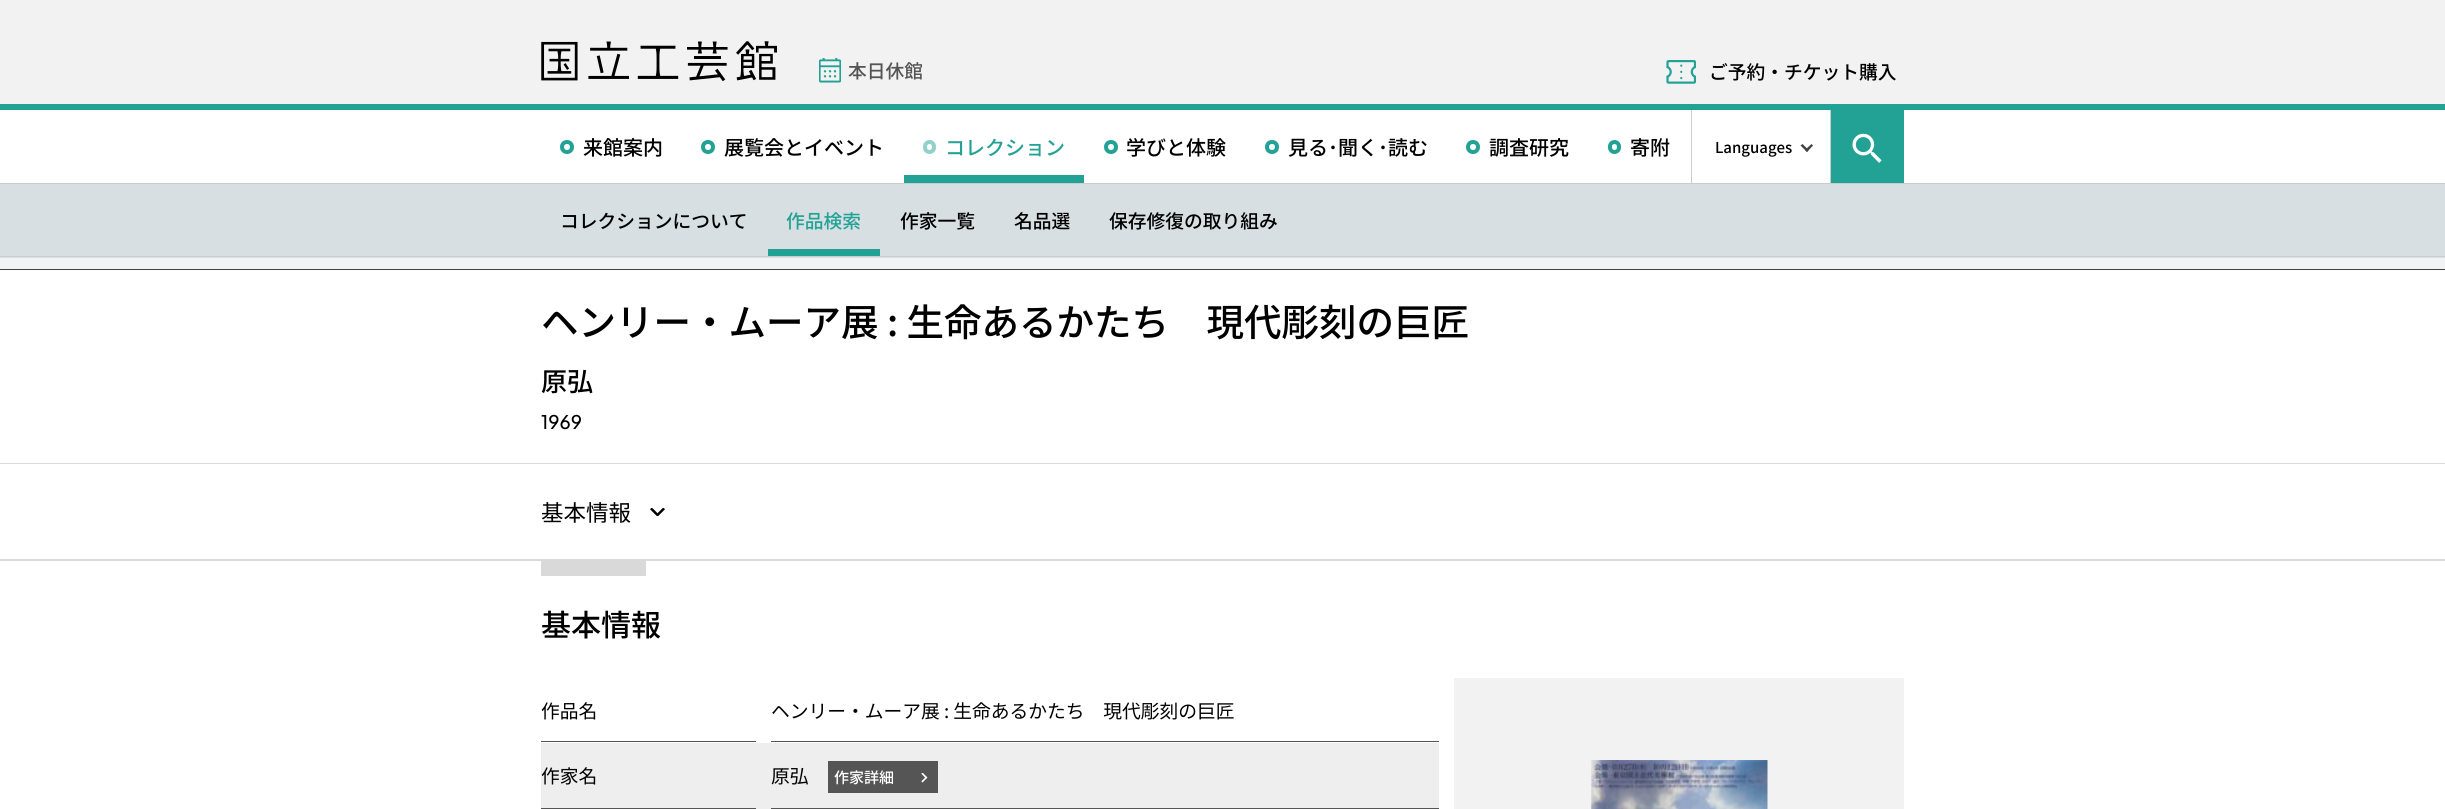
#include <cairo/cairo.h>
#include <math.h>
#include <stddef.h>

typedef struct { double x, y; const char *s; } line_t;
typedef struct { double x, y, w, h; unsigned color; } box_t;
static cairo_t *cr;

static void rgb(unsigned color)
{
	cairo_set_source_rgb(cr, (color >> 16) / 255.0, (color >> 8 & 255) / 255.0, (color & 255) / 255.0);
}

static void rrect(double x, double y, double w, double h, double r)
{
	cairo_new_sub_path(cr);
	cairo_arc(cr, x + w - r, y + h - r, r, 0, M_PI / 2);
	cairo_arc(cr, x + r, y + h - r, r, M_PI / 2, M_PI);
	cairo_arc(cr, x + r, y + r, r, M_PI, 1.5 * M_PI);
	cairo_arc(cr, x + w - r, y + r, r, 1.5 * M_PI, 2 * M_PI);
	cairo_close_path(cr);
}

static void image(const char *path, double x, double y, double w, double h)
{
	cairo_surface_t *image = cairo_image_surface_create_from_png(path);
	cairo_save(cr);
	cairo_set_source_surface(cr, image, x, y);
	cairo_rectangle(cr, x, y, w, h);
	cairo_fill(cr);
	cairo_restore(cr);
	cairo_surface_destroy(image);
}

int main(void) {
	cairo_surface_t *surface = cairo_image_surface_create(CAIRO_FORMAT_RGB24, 2445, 809);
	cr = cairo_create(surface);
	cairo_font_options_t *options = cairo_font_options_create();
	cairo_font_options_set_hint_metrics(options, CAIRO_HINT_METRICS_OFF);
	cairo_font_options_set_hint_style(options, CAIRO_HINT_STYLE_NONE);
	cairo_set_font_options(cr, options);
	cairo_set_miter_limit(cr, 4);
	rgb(0xf2f2f2);
	cairo_paint(cr);
	rgb(0x22a295);
	cairo_rectangle(cr, 0, 104, 2445, 6);
	cairo_fill(cr);
	image("img/1.png", 541, 41, 236, 40);
	image("img/2.png", 819, 58, 22, 25);
	image("img/3.png", 1666, 60, 30, 24);
	rgb(0xffffff);
	cairo_rectangle(cr, 0, 110, 2445, 73);
	cairo_fill(cr);
	rgb(0xcccccc);
	cairo_rectangle(cr, 0, 183, 2445, 1);
	cairo_fill(cr);
	cairo_arc(cr, 567, 147, 5, 0, 2 * M_PI);
	rgb(0x22a295);
	cairo_set_line_width(cr, 4);
	cairo_stroke(cr);
	cairo_arc(cr, 708, 147, 5, 0, 2 * M_PI);
	cairo_stroke(cr);
	rrect(925, 142, 9, 10, 4.5);
	rgb(0x91d1ca);
	cairo_stroke(cr);
	rgb(0x22a295);
	cairo_rectangle(cr, 904, 175, 180, 8);
	cairo_fill(cr);
	cairo_arc(cr, 1111, 147, 5, 0, 2 * M_PI);
	cairo_stroke(cr);
	cairo_arc(cr, 1272, 147, 5, 0, 2 * M_PI);
	cairo_stroke(cr);
	cairo_arc(cr, 1473, 147, 5, 0, 2 * M_PI);
	cairo_stroke(cr);
	rrect(1610, 142, 9, 10, 4.5);
	cairo_stroke(cr);
	rgb(0xcccccc);
	cairo_rectangle(cr, 1830, 110, 1, 73);
	cairo_fill(cr);
	cairo_rectangle(cr, 1691, 110, 1, 73);
	cairo_fill(cr);
	rgb(0x414141);
	cairo_new_path(cr);
	cairo_move_to(cr, 1811.5, 144);
	cairo_line_to(cr, 1813, 145.5);
	cairo_line_to(cr, 1807, 152);
	cairo_line_to(cr, 1805, 150);
	cairo_close_path(cr);
	cairo_fill(cr);
	cairo_new_path(cr);
	cairo_move_to(cr, 1802.5, 144);
	cairo_line_to(cr, 1808.5, 150);
	cairo_line_to(cr, 1807, 152);
	cairo_line_to(cr, 1800.5, 145.5);
	cairo_close_path(cr);
	cairo_fill(cr);
	rgb(0x22a295);
	cairo_rectangle(cr, 1831, 110, 73, 73);
	cairo_fill(cr);
	image("img/4.png", 1852, 133, 30, 30);
	{
		static const box_t items[] = {
			{0, 184, 2445, 74, 0xd8dfe3},
			{0, 256, 2445, 1, 0xcccccc},
			{768, 249, 112, 7, 0x22a295},
			{0, 270, 2445, 539, 0xffffff},
			{0, 269, 2445, 1, 0x414141},
			{0, 463, 2445, 1, 0xd9d9d9},
		};
		for (size_t i = 0; i < sizeof items / sizeof *items; i++) {
			rgb(items[i].color);
			cairo_rectangle(cr, items[i].x, items[i].y, items[i].w, items[i].h);
			cairo_fill(cr);
		}
	}
	image("img/5.png", 650, 508, 15, 8);
	{
		static const box_t items[] = {
			{0, 559, 2445, 2, 0xd9d9d9},
			{541, 561, 105, 15, 0xd9d9d9},
			{541, 741, 215, 1, 0x555555},
			{771, 741, 668, 1, 0x555555},
			{541, 743, 898, 66, 0xeeeeee},
			{541, 808, 215, 1, 0x555555},
			{771, 808, 668, 1, 0x555555},
			{828, 761, 110, 32, 0x555555},
		};
		for (size_t i = 0; i < sizeof items / sizeof *items; i++) {
			rgb(items[i].color);
			cairo_rectangle(cr, items[i].x, items[i].y, items[i].w, items[i].h);
			cairo_fill(cr);
		}
	}
	image("img/6.png", 921, 773, 7, 10);
	rgb(0xf2f2f2);
	cairo_rectangle(cr, 1454, 678, 450, 131);
	cairo_fill(cr);
	image("img/7.png", 1591, 760, 177, 49);
	cairo_select_font_face(cr, "Noto Sans JP Medium", CAIRO_FONT_SLANT_NORMAL, CAIRO_FONT_WEIGHT_NORMAL);
	cairo_set_font_size(cr, 18.75);
	rgb(0x555555);
	cairo_move_to(cr, 848, 78);
	cairo_show_text(cr, "本日休館");
	rgb(0x000000);
	cairo_move_to(cr, 1709, 79);
	cairo_show_text(cr, "ご予約・チケット購入");
	cairo_set_font_size(cr, 20);
	cairo_move_to(cr, 583, 155);
	cairo_show_text(cr, "来館案内");
	cairo_move_to(cr, 724, 155);
	cairo_show_text(cr, "展覧会とイベント");
	rgb(0x22a295);
	cairo_move_to(cr, 945, 155);
	cairo_show_text(cr, "コレクション");
	rgb(0x000000);
	{
		static const line_t items[] = {
			{1126, 155, "学びと体験"},
			{1288, 155, "見る･聞く･読む"},
			{1489, 155, "調査研究"},
			{1630, 155, "寄附"},
		};
		for (size_t i = 0; i < sizeof items / sizeof *items; i++) {
			cairo_move_to(cr, items[i].x, items[i].y);
			cairo_show_text(cr, items[i].s);
		}
	}
	cairo_set_font_size(cr, 15);
	cairo_move_to(cr, 1715, 153);
	cairo_show_text(cr, "Languages");
	cairo_set_font_size(cr, 18.75);
	cairo_move_to(cr, 560, 228);
	cairo_show_text(cr, "コレクションについて");
	rgb(0x22a295);
	cairo_move_to(cr, 786, 228);
	cairo_show_text(cr, "作品検索");
	rgb(0x000000);
	{
		static const line_t items[] = {
			{900, 228, "作家一覧"},
			{1014, 228, "名品選"},
			{1109, 228, "保存修復の取り組み"},
		};
		for (size_t i = 0; i < sizeof items / sizeof *items; i++) {
			cairo_move_to(cr, items[i].x, items[i].y);
			cairo_show_text(cr, items[i].s);
		}
	}
	cairo_set_font_size(cr, 37.5);
	cairo_move_to(cr, 541, 336);
	cairo_show_text(cr, "ヘンリー・ムーア展 : 生命あるかたち　現代彫刻の巨匠");
	cairo_set_font_size(cr, 26);
	cairo_move_to(cr, 541, 391);
	cairo_show_text(cr, "原弘");
	cairo_select_font_face(cr, "Plus Jakarta Sans Medium", CAIRO_FONT_SLANT_NORMAL, CAIRO_FONT_WEIGHT_NORMAL);
	cairo_set_font_size(cr, 18.75);
	cairo_move_to(cr, 541, 429);
	cairo_show_text(cr, "1969");
	cairo_select_font_face(cr, "Noto Sans JP", CAIRO_FONT_SLANT_NORMAL, CAIRO_FONT_WEIGHT_NORMAL);
	cairo_set_font_size(cr, 22.5);
	cairo_move_to(cr, 541, 521);
	cairo_show_text(cr, "基本情報");
	cairo_select_font_face(cr, "Noto Sans JP Medium", CAIRO_FONT_SLANT_NORMAL, CAIRO_FONT_WEIGHT_NORMAL);
	cairo_set_font_size(cr, 30);
	cairo_move_to(cr, 541, 636);
	cairo_show_text(cr, "基本情報");
	cairo_select_font_face(cr, "Noto Sans JP", CAIRO_FONT_SLANT_NORMAL, CAIRO_FONT_WEIGHT_NORMAL);
	cairo_set_font_size(cr, 18.75);
	{
		static const line_t items[] = {
			{541, 718, "作品名"},
			{771, 718, "ヘンリー・ムーア展 : 生命あるかたち　現代彫刻の巨匠"},
			{541, 783, "作家名"},
			{771, 783, "原弘"},
		};
		for (size_t i = 0; i < sizeof items / sizeof *items; i++) {
			cairo_move_to(cr, items[i].x, items[i].y);
			cairo_show_text(cr, items[i].s);
		}
	}
	cairo_select_font_face(cr, "Noto Sans JP Medium", CAIRO_FONT_SLANT_NORMAL, CAIRO_FONT_WEIGHT_NORMAL);
	cairo_set_font_size(cr, 15);
	rgb(0xffffff);
	cairo_move_to(cr, 834, 783);
	cairo_show_text(cr, "作家詳細");
	cairo_surface_write_to_png(surface, "page.png");
	cairo_font_options_destroy(options);
	cairo_destroy(cr);
	cairo_surface_destroy(surface);
	return 0;
}
